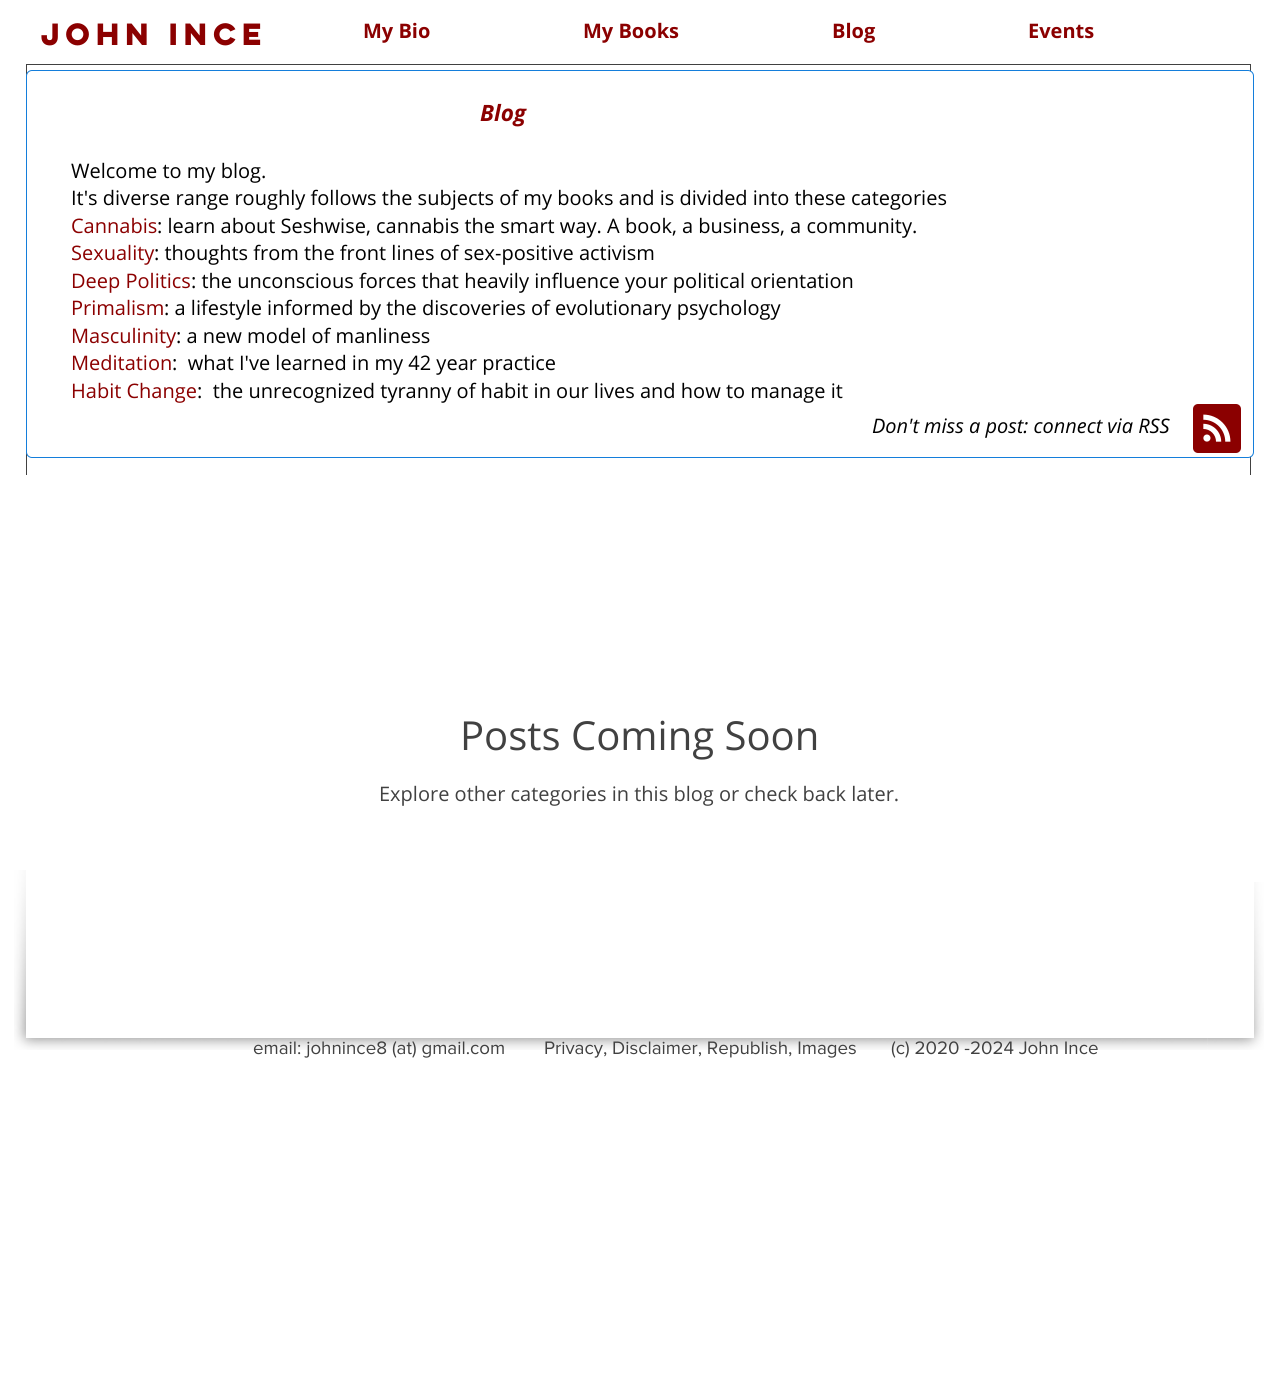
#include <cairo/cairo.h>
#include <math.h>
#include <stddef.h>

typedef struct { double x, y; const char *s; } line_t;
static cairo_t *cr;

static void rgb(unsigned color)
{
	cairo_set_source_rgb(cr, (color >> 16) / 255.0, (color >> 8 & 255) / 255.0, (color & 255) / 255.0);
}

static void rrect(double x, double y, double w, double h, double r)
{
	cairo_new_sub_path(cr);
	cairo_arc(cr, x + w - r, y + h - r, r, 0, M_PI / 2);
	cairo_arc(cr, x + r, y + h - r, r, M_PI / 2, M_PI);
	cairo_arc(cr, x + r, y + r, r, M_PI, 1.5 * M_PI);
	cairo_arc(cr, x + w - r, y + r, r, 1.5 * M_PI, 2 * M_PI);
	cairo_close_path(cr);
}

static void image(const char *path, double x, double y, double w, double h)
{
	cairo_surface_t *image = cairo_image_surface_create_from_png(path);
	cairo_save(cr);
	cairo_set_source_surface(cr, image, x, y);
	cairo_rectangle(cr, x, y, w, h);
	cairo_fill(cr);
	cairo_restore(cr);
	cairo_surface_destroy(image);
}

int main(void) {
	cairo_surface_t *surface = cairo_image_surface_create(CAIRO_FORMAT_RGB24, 1276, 1376);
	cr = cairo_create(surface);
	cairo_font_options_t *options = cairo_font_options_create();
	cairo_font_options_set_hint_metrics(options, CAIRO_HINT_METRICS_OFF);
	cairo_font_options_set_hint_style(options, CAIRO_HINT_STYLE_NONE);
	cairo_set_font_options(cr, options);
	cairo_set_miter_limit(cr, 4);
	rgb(0xffffff);
	cairo_paint(cr);
	image("img/1.png", 14, 870, 56, 180);
	image("img/2.png", 70, 1038, 1138, 12);
	image("img/3.png", 1207, 882, 57, 168);
	cairo_rectangle(cr, 26.5, 64.5, 1224, 973);
	rgb(0x414141);
	cairo_set_line_width(cr, 1);
	cairo_stroke(cr);
	rgb(0xffffff);
	rrect(26.5, 70.5, 1227, 387, 5.5);
	cairo_fill_preserve(cr);
	rgb(0x147edb);
	cairo_stroke(cr);
	image("img/4.png", 1193, 404, 48, 49);
	rgb(0xffffff);
	cairo_rectangle(cr, 26, 475, 1228, 563);
	cairo_fill(cr);
	cairo_select_font_face(cr, "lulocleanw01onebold", CAIRO_FONT_SLANT_NORMAL, CAIRO_FONT_WEIGHT_BOLD);
	cairo_set_font_size(cr, 27.5);
	rgb(0x8b0000);
	cairo_move_to(cr, 41, 45);
	cairo_show_text(cr, "John ince");
	cairo_select_font_face(cr, "Open Sans", CAIRO_FONT_SLANT_NORMAL, CAIRO_FONT_WEIGHT_BOLD);
	cairo_set_font_size(cr, 20);
	{
		static const line_t items[] = {
			{363, 38, "My Bio"},
			{583, 38, "My Books"},
			{832, 38, "Blog"},
			{1028, 38, "Events"},
		};
		for (size_t i = 0; i < sizeof items / sizeof *items; i++) {
			cairo_move_to(cr, items[i].x, items[i].y);
			cairo_show_text(cr, items[i].s);
		}
	}
	cairo_select_font_face(cr, "Open Sans", CAIRO_FONT_SLANT_ITALIC, CAIRO_FONT_WEIGHT_BOLD);
	cairo_set_font_size(cr, 22.5);
	cairo_move_to(cr, 480, 121);
	cairo_show_text(cr, "Blog");
	cairo_select_font_face(cr, "Open Sans", CAIRO_FONT_SLANT_NORMAL, CAIRO_FONT_WEIGHT_NORMAL);
	cairo_set_font_size(cr, 20);
	rgb(0x000000);
	cairo_move_to(cr, 71, 178);
	cairo_show_text(cr, "Welcome to my blog.");
	cairo_move_to(cr, 71, 205);
	cairo_show_text(cr, "It's diverse range roughly follows the subjects of my books and is divided into these categories");
	rgb(0x8b0000);
	cairo_move_to(cr, 71, 233);
	cairo_show_text(cr, "Cannabis");
	rgb(0x000000);
	cairo_move_to(cr, 157, 233);
	cairo_show_text(cr, ": learn about Seshwise, cannabis the smart way. A book, a business, a community.");
	rgb(0x8b0000);
	cairo_move_to(cr, 71, 260);
	cairo_show_text(cr, "Sexuality");
	rgb(0x000000);
	cairo_move_to(cr, 154, 260);
	cairo_show_text(cr, ": thoughts from the front lines of sex-positive activism");
	rgb(0x8b0000);
	cairo_move_to(cr, 71, 288);
	cairo_show_text(cr, "Deep Politics");
	rgb(0x000000);
	cairo_move_to(cr, 191, 288);
	cairo_show_text(cr, ": the unconscious forces that heavily influence your political orientation");
	rgb(0x8b0000);
	cairo_move_to(cr, 71, 315);
	cairo_show_text(cr, "Primalism");
	rgb(0x000000);
	cairo_move_to(cr, 164, 315);
	cairo_show_text(cr, ": a lifestyle informed by the discoveries of evolutionary psychology");
	rgb(0x8b0000);
	cairo_move_to(cr, 71, 343);
	cairo_show_text(cr, "Masculinity");
	rgb(0x000000);
	cairo_move_to(cr, 176, 343);
	cairo_show_text(cr, ": a new model of manliness");
	rgb(0x8b0000);
	cairo_move_to(cr, 71, 370);
	cairo_show_text(cr, "Meditation");
	rgb(0x000000);
	cairo_move_to(cr, 172, 370);
	cairo_show_text(cr, ":  what I've learned in my 42 year practice");
	rgb(0x8b0000);
	cairo_move_to(cr, 71, 398);
	cairo_show_text(cr, "Habit Change");
	rgb(0x000000);
	cairo_move_to(cr, 197, 398);
	cairo_show_text(cr, ":  the unrecognized tyranny of habit in our lives and how to manage it");
	cairo_select_font_face(cr, "Open Sans", CAIRO_FONT_SLANT_ITALIC, CAIRO_FONT_WEIGHT_NORMAL);
	cairo_move_to(cr, 872, 433);
	cairo_show_text(cr, "Don't miss a post: connect via RSS");
	cairo_select_font_face(cr, "Open Sans", CAIRO_FONT_SLANT_NORMAL, CAIRO_FONT_WEIGHT_NORMAL);
	cairo_set_font_size(cr, 40);
	rgb(0x414141);
	cairo_move_to(cr, 460, 750);
	cairo_show_text(cr, "Posts Coming Soon");
	cairo_set_font_size(cr, 20);
	cairo_move_to(cr, 379, 801);
	cairo_show_text(cr, "Explore other categories in this blog or check back later.");
	cairo_select_font_face(cr, "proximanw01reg", CAIRO_FONT_SLANT_NORMAL, CAIRO_FONT_WEIGHT_NORMAL);
	cairo_set_font_size(cr, 18.75);
	{
		static const line_t items[] = {
			{253, 1054, "email: johnince8 (at) gmail.com"},
			{544, 1054, "Privacy, Disclaimer, Republish, Images"},
			{891, 1054, "(c) 2020 -2024 John Ince"},
		};
		for (size_t i = 0; i < sizeof items / sizeof *items; i++) {
			cairo_move_to(cr, items[i].x, items[i].y);
			cairo_show_text(cr, items[i].s);
		}
	}
	cairo_surface_write_to_png(surface, "page.png");
	cairo_font_options_destroy(options);
	cairo_destroy(cr);
	cairo_surface_destroy(surface);
	return 0;
}
